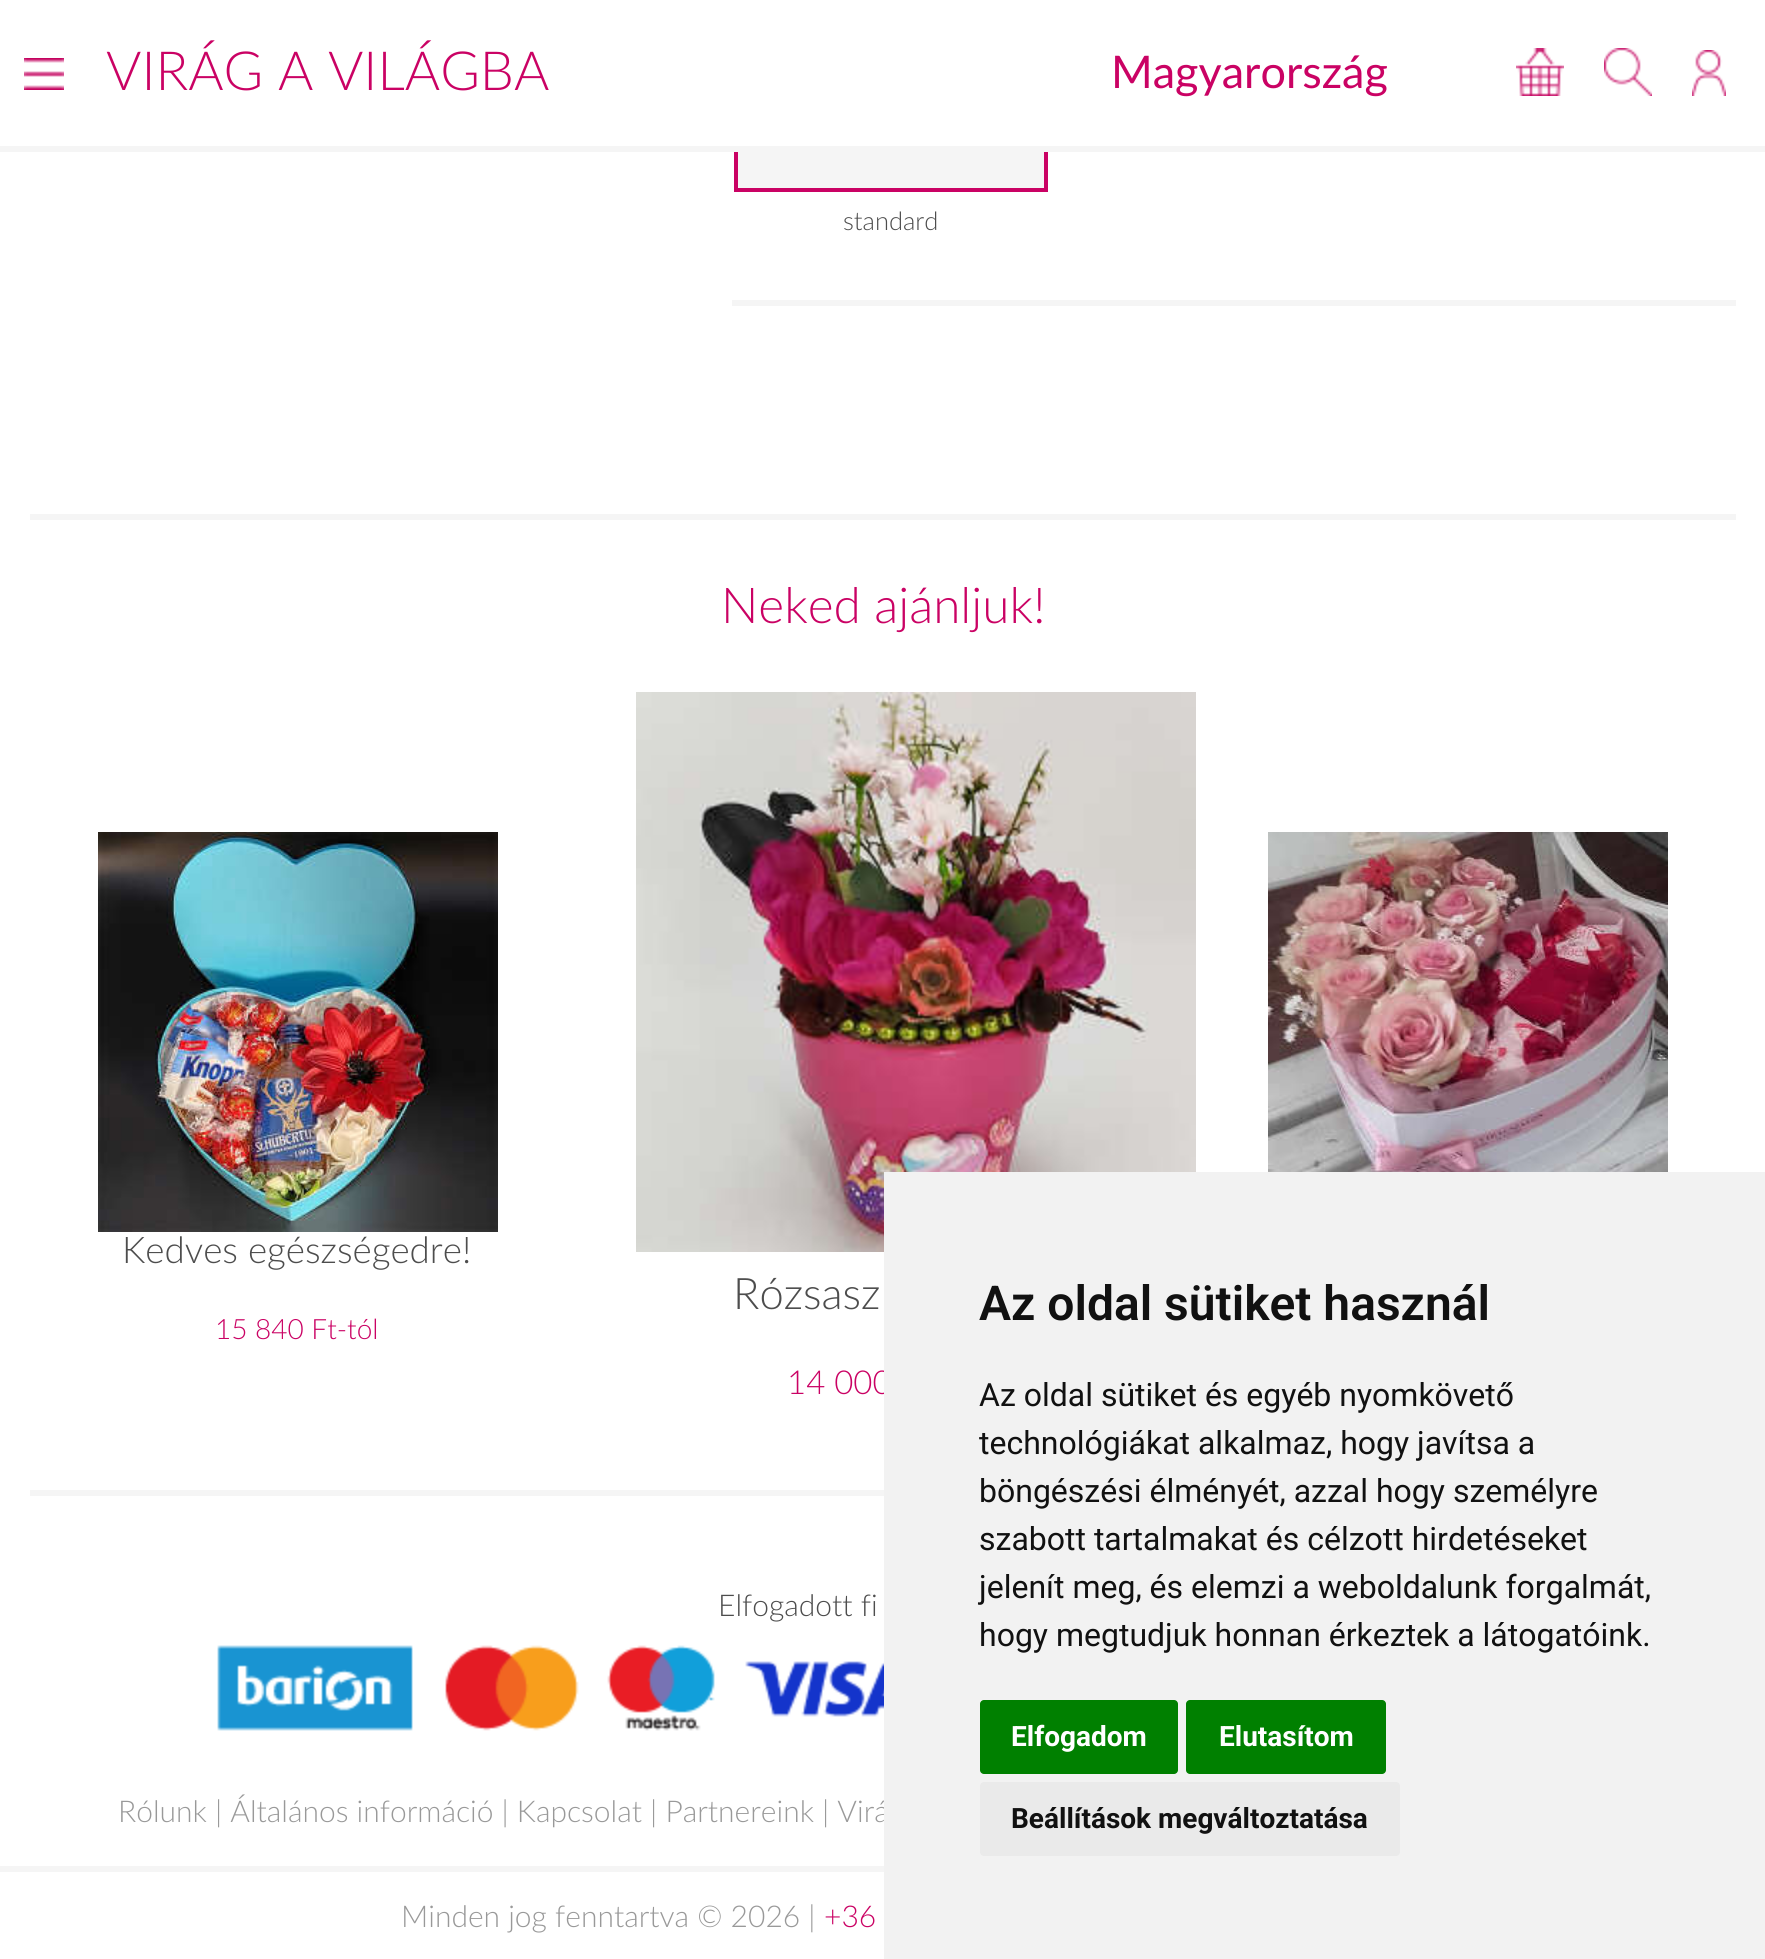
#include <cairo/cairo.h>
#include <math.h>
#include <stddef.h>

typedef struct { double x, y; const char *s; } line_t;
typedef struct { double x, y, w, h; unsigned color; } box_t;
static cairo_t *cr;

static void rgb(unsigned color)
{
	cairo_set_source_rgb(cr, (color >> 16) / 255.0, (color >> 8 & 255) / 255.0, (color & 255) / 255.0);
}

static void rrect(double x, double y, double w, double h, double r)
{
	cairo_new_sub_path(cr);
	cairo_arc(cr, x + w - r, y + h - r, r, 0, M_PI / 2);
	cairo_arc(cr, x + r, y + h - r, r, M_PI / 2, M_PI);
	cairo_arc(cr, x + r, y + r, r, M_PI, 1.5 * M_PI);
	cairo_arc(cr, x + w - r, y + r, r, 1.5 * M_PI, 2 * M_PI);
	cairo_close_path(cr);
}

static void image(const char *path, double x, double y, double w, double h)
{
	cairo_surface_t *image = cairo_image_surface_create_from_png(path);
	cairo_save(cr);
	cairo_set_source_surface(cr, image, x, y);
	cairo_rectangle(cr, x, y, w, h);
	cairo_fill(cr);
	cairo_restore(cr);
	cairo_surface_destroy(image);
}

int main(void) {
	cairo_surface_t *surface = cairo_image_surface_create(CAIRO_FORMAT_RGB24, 1765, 1959);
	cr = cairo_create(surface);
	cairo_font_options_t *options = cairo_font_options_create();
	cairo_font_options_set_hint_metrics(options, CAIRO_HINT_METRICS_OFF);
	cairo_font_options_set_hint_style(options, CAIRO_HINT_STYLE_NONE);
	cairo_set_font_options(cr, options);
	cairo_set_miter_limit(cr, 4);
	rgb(0xffffff);
	cairo_paint(cr);
	rgb(0xf5f5f5);
	cairo_rectangle(cr, 738, 152, 306, 36);
	cairo_fill(cr);
	cairo_rectangle(cr, 736, 94, 310, 96);
	rgb(0xca0264);
	cairo_set_line_width(cr, 4);
	cairo_stroke(cr);
	rgb(0xffffff);
	cairo_rectangle(cr, 734, 92, 314, 54);
	cairo_fill(cr);
	rgb(0xf5f5f5);
	cairo_rectangle(cr, 0, 146, 1765, 6);
	cairo_fill(cr);
	image("img/1.png", 24, 58, 40, 32);
	image("img/2.png", 1516, 48, 48, 48);
	image("img/3.png", 1604, 48, 48, 48);
	image("img/4.png", 1692, 50, 34, 46);
	{
		static const box_t items[] = {
			{30, 514, 1706, 6, 0xf5f5f5},
			{732, 300, 1004, 6, 0xf5f5f5},
			{30, 1490, 854, 6, 0xf5f5f5},
		};
		for (size_t i = 0; i < sizeof items / sizeof *items; i++) {
			rgb(items[i].color);
			cairo_rectangle(cr, items[i].x, items[i].y, items[i].w, items[i].h);
			cairo_fill(cr);
		}
	}
	image("img/5.png", 1268, 832, 400, 340);
	image("img/6.png", 98, 832, 400, 400);
	image("img/7.png", 636, 692, 560, 560);
	image("img/8.png", 217, 1645, 667, 86);
	cairo_rectangle(cr, 0, 1866, 884, 6);
	cairo_fill(cr);
	cairo_select_font_face(cr, "Lato Light", CAIRO_FONT_SLANT_NORMAL, CAIRO_FONT_WEIGHT_NORMAL);
	cairo_set_font_size(cr, 54);
	rgb(0xca0264);
	cairo_move_to(cr, 106, 90);
	cairo_show_text(cr, "VIRÁG A VILÁGBA");
	cairo_select_font_face(cr, "Lato", CAIRO_FONT_SLANT_NORMAL, CAIRO_FONT_WEIGHT_NORMAL);
	cairo_set_font_size(cr, 45);
	cairo_move_to(cr, 1111, 88);
	cairo_show_text(cr, "Magyarország");
	cairo_select_font_face(cr, "Lato Light", CAIRO_FONT_SLANT_NORMAL, CAIRO_FONT_WEIGHT_NORMAL);
	cairo_set_font_size(cr, 25.5);
	rgb(0x4d4d4d);
	cairo_move_to(cr, 843, 230);
	cairo_show_text(cr, "standard");
	cairo_set_font_size(cr, 49.5);
	rgb(0xca0264);
	cairo_move_to(cr, 721, 623);
	cairo_show_text(cr, "Neked ajánljuk!");
	cairo_set_font_size(cr, 36.75);
	rgb(0x4d4d4d);
	cairo_move_to(cr, 122, 1263);
	cairo_show_text(cr, "Kedves egészségedre!");
	cairo_set_font_size(cr, 28);
	rgb(0xca0264);
	cairo_move_to(cr, 215, 1339);
	cairo_show_text(cr, "15 840 Ft-tól");
	cairo_set_font_size(cr, 43.5);
	rgb(0x4d4d4d);
	cairo_move_to(cr, 733, 1309);
	cairo_show_text(cr, "Rózsasz");
	cairo_set_font_size(cr, 33);
	rgb(0xca0264);
	cairo_move_to(cr, 787, 1394);
	cairo_show_text(cr, "14 000");
	cairo_set_font_size(cr, 30);
	rgb(0x4d4d4d);
	cairo_move_to(cr, 718, 1616);
	cairo_show_text(cr, "Elfogadott fi");
	rgb(0x999999);
	cairo_move_to(cr, 118, 1822);
	cairo_show_text(cr, "Rólunk | Általános információ | Kapcsolat | Partnereink | Virá");
	cairo_move_to(cr, 401, 1927);
	cairo_show_text(cr, "Minden jog fenntartva © 2026 |");
	rgb(0xca0264);
	cairo_move_to(cr, 824, 1927);
	cairo_show_text(cr, "+36");
	rgb(0xf2f2f2);
	cairo_rectangle(cr, 884, 1172, 881, 787);
	cairo_fill(cr);
	cairo_select_font_face(cr, "Roboto SemiBold", CAIRO_FONT_SLANT_NORMAL, CAIRO_FONT_WEIGHT_NORMAL);
	cairo_set_font_size(cr, 48);
	rgb(0x111111);
	cairo_move_to(cr, 979, 1320);
	cairo_show_text(cr, "Az oldal sütiket használ");
	cairo_select_font_face(cr, "Roboto", CAIRO_FONT_SLANT_NORMAL, CAIRO_FONT_WEIGHT_NORMAL);
	cairo_set_font_size(cr, 32);
	{
		static const line_t items[] = {
			{979, 1406, "Az oldal sütiket és egyéb nyomkövető"},
			{979, 1454, "technológiákat alkalmaz, hogy javítsa a"},
			{979, 1502, "böngészési élményét, azzal hogy személyre"},
			{979, 1550, "szabott tartalmakat és célzott hirdetéseket"},
			{979, 1598, "jelenít meg, és elemzi a weboldalunk forgalmát,"},
			{979, 1646, "hogy megtudjuk honnan érkeztek a látogatóink."},
		};
		for (size_t i = 0; i < sizeof items / sizeof *items; i++) {
			cairo_move_to(cr, items[i].x, items[i].y);
			cairo_show_text(cr, items[i].s);
		}
	}
	rgb(0x008000);
	rrect(980, 1700, 198, 74, 4);
	cairo_fill(cr);
	cairo_select_font_face(cr, "Roboto", CAIRO_FONT_SLANT_NORMAL, CAIRO_FONT_WEIGHT_BOLD);
	cairo_set_font_size(cr, 28);
	rgb(0xffffff);
	cairo_move_to(cr, 1011, 1746);
	cairo_show_text(cr, "Elfogadom");
	rgb(0x008000);
	rrect(1186, 1700, 200, 74, 4);
	cairo_fill(cr);
	rgb(0xffffff);
	cairo_move_to(cr, 1219, 1746);
	cairo_show_text(cr, "Elutasítom");
	rgb(0xeaeaea);
	rrect(980, 1782, 420, 74, 4);
	cairo_fill(cr);
	rgb(0x111111);
	cairo_move_to(cr, 1011, 1828);
	cairo_show_text(cr, "Beállítások megváltoztatása");
	cairo_surface_write_to_png(surface, "page.png");
	cairo_font_options_destroy(options);
	cairo_destroy(cr);
	cairo_surface_destroy(surface);
	return 0;
}
